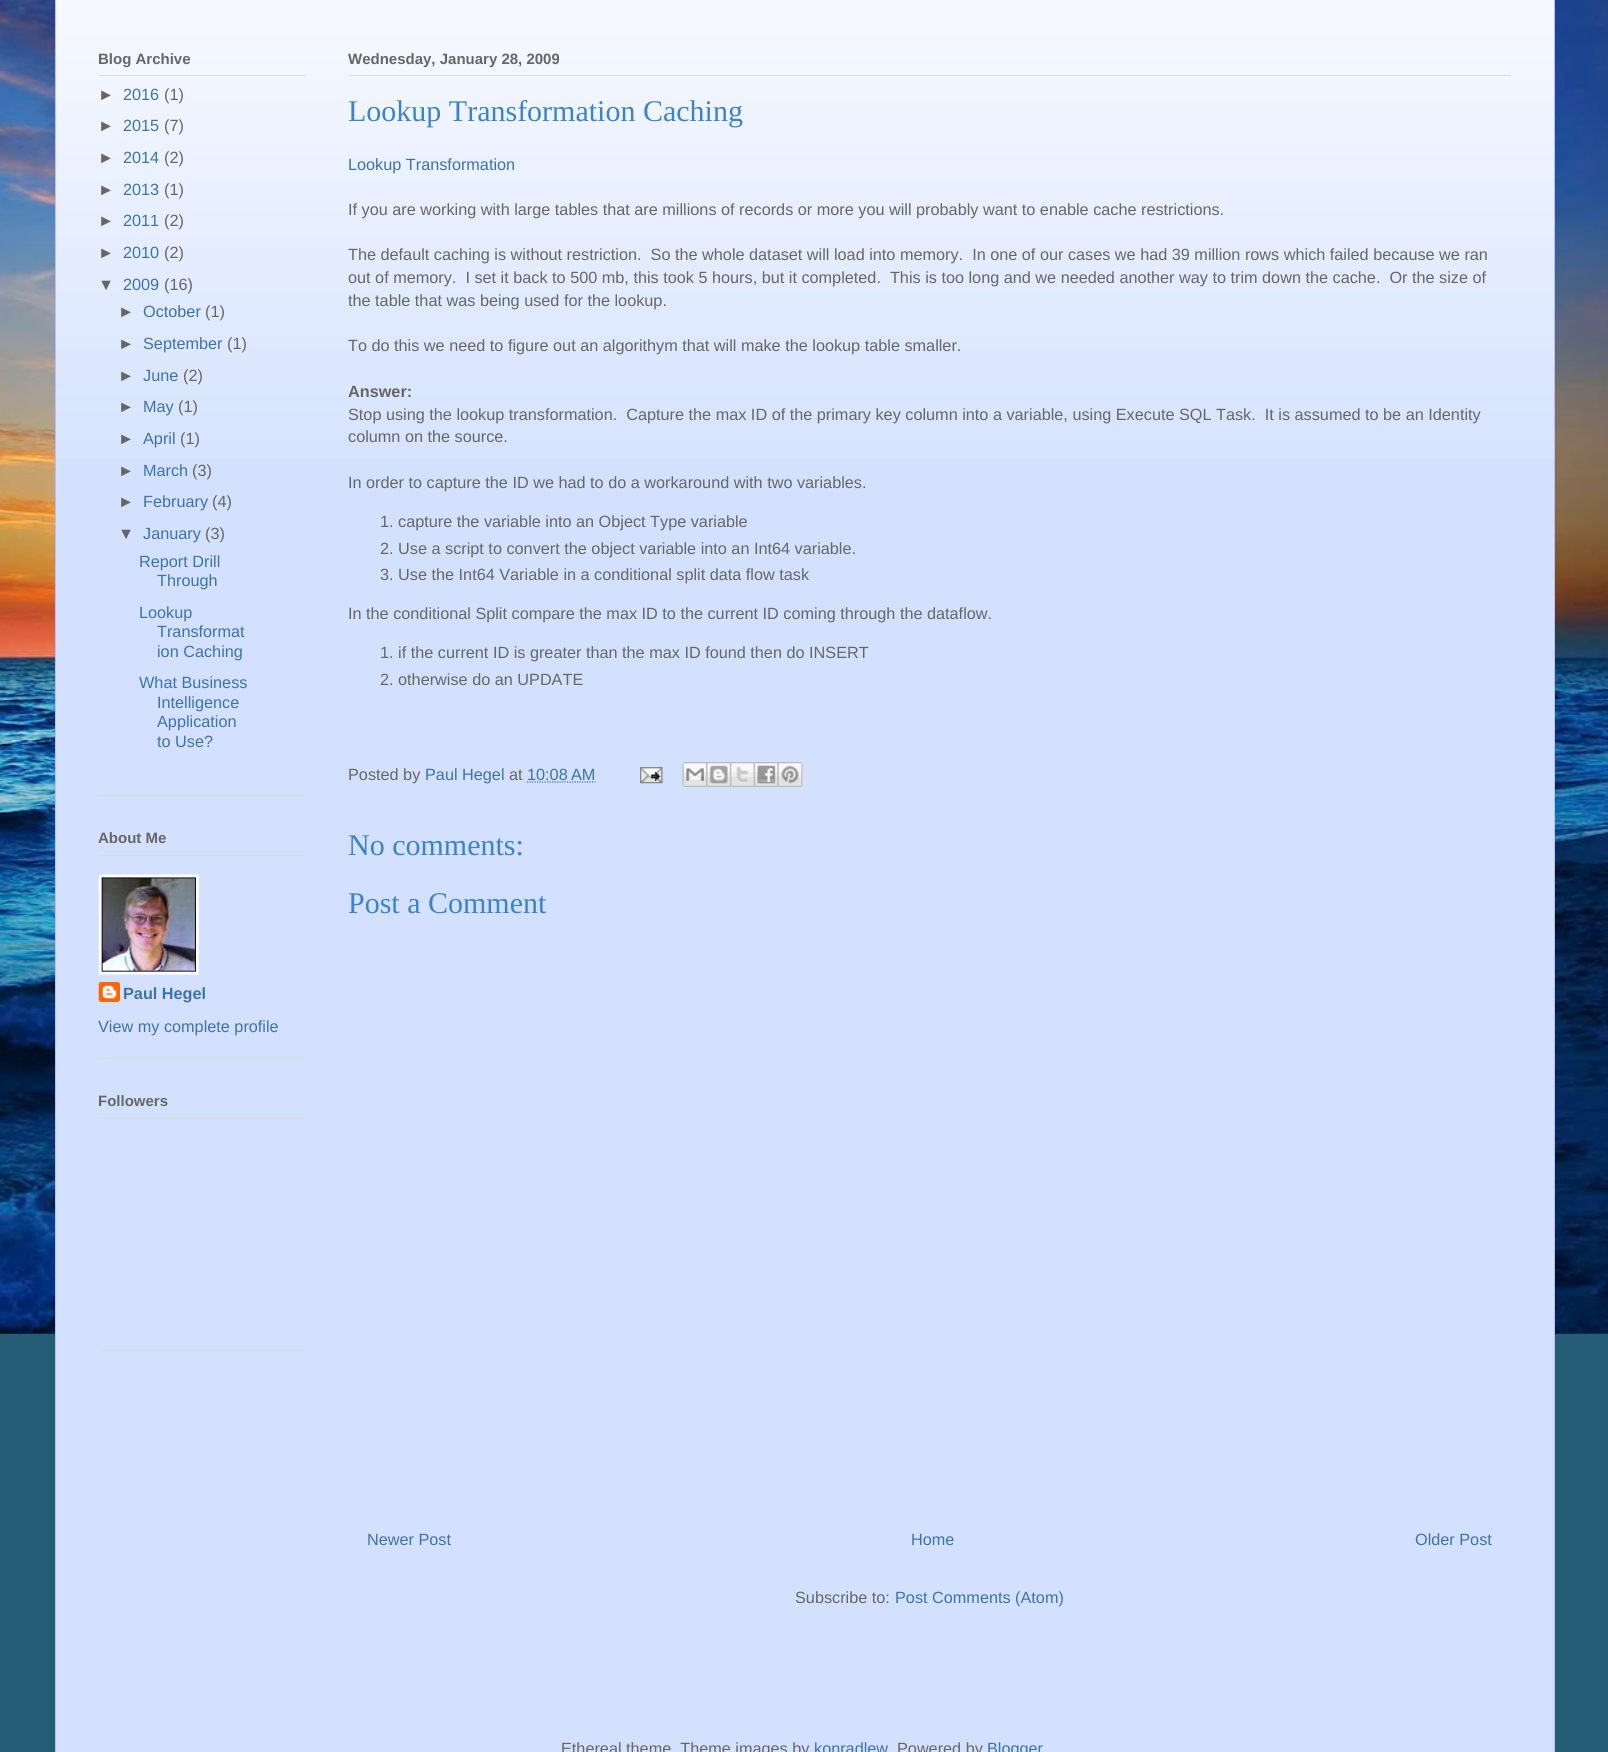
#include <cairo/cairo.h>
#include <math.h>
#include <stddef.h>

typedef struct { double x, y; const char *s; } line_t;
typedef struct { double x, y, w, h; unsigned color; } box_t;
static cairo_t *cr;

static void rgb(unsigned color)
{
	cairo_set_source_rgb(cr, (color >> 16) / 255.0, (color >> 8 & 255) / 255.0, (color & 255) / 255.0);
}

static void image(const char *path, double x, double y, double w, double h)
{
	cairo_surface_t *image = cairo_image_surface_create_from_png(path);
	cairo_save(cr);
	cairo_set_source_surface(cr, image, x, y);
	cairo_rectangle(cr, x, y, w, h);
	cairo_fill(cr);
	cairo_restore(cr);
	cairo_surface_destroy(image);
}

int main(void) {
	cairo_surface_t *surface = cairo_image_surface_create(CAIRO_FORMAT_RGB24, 1608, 1752);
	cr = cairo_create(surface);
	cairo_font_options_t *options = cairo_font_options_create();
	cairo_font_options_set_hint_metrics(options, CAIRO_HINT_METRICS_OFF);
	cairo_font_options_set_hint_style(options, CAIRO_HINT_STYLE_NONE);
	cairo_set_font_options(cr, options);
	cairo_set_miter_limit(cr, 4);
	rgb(0x255d76);
	cairo_paint(cr);
	image("img/1.png", 0, 0, 1608, 1334);
	rgb(0xd3e1ff);
	cairo_rectangle(cr, 56, 0, 1498, 1752);
	cairo_fill(cr);
	image("img/2.png", 56, 0, 1498, 459);
	{
		static const box_t items[] = {
			{1554, 0, 1, 1752, 0xbbbbff},
			{55, 0, 1, 1752, 0xbbbbff},
			{99, 795, 206, 1, 0xdbdbdb},
			{99, 75, 206, 1, 0xdbdbdb},
			{99, 1058, 206, 1, 0xdbdbdb},
			{99, 855, 206, 1, 0xdbdbdb},
		};
		for (size_t i = 0; i < sizeof items / sizeof *items; i++) {
			rgb(items[i].color);
			cairo_rectangle(cr, items[i].x, items[i].y, items[i].w, items[i].h);
			cairo_fill(cr);
		}
	}
	image("img/3.png", 98, 874, 101, 101);
	image("img/4.png", 98, 982, 22, 20);
	{
		static const box_t items[] = {
			{99, 1350, 206, 1, 0xdbdbdb},
			{99, 1118, 206, 1, 0xdbdbdb},
			{349, 75, 1162, 1, 0xdbdbdb},
		};
		for (size_t i = 0; i < sizeof items / sizeof *items; i++) {
			rgb(items[i].color);
			cairo_rectangle(cr, items[i].x, items[i].y, items[i].w, items[i].h);
			cairo_fill(cr);
		}
	}
	cairo_new_path(cr);
	cairo_move_to(cr, 527, 782);
	cairo_line_to(cr, 595.5, 782);
	rgb(0x3d74a5);
	cairo_set_line_width(cr, 1.2);
	cairo_set_dash(cr, (double[]){1.25, 1.25}, 2, 0);
	cairo_stroke(cr);
	image("img/5.png", 640, 767, 23, 17);
	image("img/6.png", 682, 762, 25, 25);
	image("img/7.png", 706, 762, 24, 25);
	image("img/8.png", 730, 762, 24, 25);
	image("img/9.png", 753, 762, 25, 25);
	image("img/10.png", 777, 762, 26, 25);
	cairo_select_font_face(cr, "Liberation Sans", CAIRO_FONT_SLANT_NORMAL, CAIRO_FONT_WEIGHT_BOLD);
	cairo_set_font_size(cr, 15);
	rgb(0x666666);
	cairo_move_to(cr, 98, 64);
	cairo_show_text(cr, "Blog Archive");
	cairo_select_font_face(cr, "Liberation Sans", CAIRO_FONT_SLANT_NORMAL, CAIRO_FONT_WEIGHT_NORMAL);
	cairo_set_font_size(cr, 16.25);
	cairo_move_to(cr, 98, 100);
	cairo_show_text(cr, "►");
	rgb(0x3d74a5);
	cairo_move_to(cr, 123, 100);
	cairo_show_text(cr, "2016");
	rgb(0x666666);
	cairo_move_to(cr, 164, 100);
	cairo_show_text(cr, "(1)");
	cairo_move_to(cr, 98, 131);
	cairo_show_text(cr, "►");
	rgb(0x3d74a5);
	cairo_move_to(cr, 123, 131);
	cairo_show_text(cr, "2015");
	rgb(0x666666);
	cairo_move_to(cr, 164, 131);
	cairo_show_text(cr, "(7)");
	cairo_move_to(cr, 98, 163);
	cairo_show_text(cr, "►");
	rgb(0x3d74a5);
	cairo_move_to(cr, 123, 163);
	cairo_show_text(cr, "2014");
	rgb(0x666666);
	cairo_move_to(cr, 164, 163);
	cairo_show_text(cr, "(2)");
	cairo_move_to(cr, 98, 195);
	cairo_show_text(cr, "►");
	rgb(0x3d74a5);
	cairo_move_to(cr, 123, 195);
	cairo_show_text(cr, "2013");
	rgb(0x666666);
	cairo_move_to(cr, 164, 195);
	cairo_show_text(cr, "(1)");
	cairo_move_to(cr, 98, 226);
	cairo_show_text(cr, "►");
	rgb(0x3d74a5);
	cairo_move_to(cr, 123, 226);
	cairo_show_text(cr, "2011");
	rgb(0x666666);
	cairo_move_to(cr, 164, 226);
	cairo_show_text(cr, "(2)");
	cairo_move_to(cr, 98, 258);
	cairo_show_text(cr, "►");
	rgb(0x3d74a5);
	cairo_move_to(cr, 123, 258);
	cairo_show_text(cr, "2010");
	rgb(0x666666);
	cairo_move_to(cr, 164, 258);
	cairo_show_text(cr, "(2)");
	cairo_move_to(cr, 98, 290);
	cairo_show_text(cr, "▼");
	rgb(0x3d74a5);
	cairo_move_to(cr, 123, 290);
	cairo_show_text(cr, "2009");
	rgb(0x666666);
	cairo_move_to(cr, 164, 290);
	cairo_show_text(cr, "(16)");
	cairo_move_to(cr, 118, 317);
	cairo_show_text(cr, "►");
	rgb(0x3d74a5);
	cairo_move_to(cr, 143, 317);
	cairo_show_text(cr, "October");
	rgb(0x666666);
	cairo_move_to(cr, 205, 317);
	cairo_show_text(cr, "(1)");
	cairo_move_to(cr, 118, 349);
	cairo_show_text(cr, "►");
	rgb(0x3d74a5);
	cairo_move_to(cr, 143, 349);
	cairo_show_text(cr, "September");
	rgb(0x666666);
	cairo_move_to(cr, 227, 349);
	cairo_show_text(cr, "(1)");
	cairo_move_to(cr, 118, 381);
	cairo_show_text(cr, "►");
	rgb(0x3d74a5);
	cairo_move_to(cr, 143, 381);
	cairo_show_text(cr, "June");
	rgb(0x666666);
	cairo_move_to(cr, 183, 381);
	cairo_show_text(cr, "(2)");
	cairo_move_to(cr, 118, 412);
	cairo_show_text(cr, "►");
	rgb(0x3d74a5);
	cairo_move_to(cr, 143, 412);
	cairo_show_text(cr, "May");
	rgb(0x666666);
	cairo_move_to(cr, 178, 412);
	cairo_show_text(cr, "(1)");
	cairo_move_to(cr, 118, 444);
	cairo_show_text(cr, "►");
	rgb(0x3d74a5);
	cairo_move_to(cr, 143, 444);
	cairo_show_text(cr, "April");
	rgb(0x666666);
	cairo_move_to(cr, 180, 444);
	cairo_show_text(cr, "(1)");
	cairo_move_to(cr, 118, 476);
	cairo_show_text(cr, "►");
	rgb(0x3d74a5);
	cairo_move_to(cr, 143, 476);
	cairo_show_text(cr, "March");
	rgb(0x666666);
	cairo_move_to(cr, 192, 476);
	cairo_show_text(cr, "(3)");
	cairo_move_to(cr, 118, 507);
	cairo_show_text(cr, "►");
	rgb(0x3d74a5);
	cairo_move_to(cr, 143, 507);
	cairo_show_text(cr, "February");
	rgb(0x666666);
	cairo_move_to(cr, 212, 507);
	cairo_show_text(cr, "(4)");
	cairo_move_to(cr, 118, 539);
	cairo_show_text(cr, "▼");
	rgb(0x3d74a5);
	cairo_move_to(cr, 143, 539);
	cairo_show_text(cr, "January");
	rgb(0x666666);
	cairo_move_to(cr, 205, 539);
	cairo_show_text(cr, "(3)");
	rgb(0x3d74a5);
	{
		static const line_t items[] = {
			{139, 567, "Report Drill"},
			{157, 586, "Through"},
			{139, 618, "Lookup"},
			{157, 637, "Transformat"},
			{157, 657, "ion Caching"},
			{139, 688, "What Business"},
			{157, 708, "Intelligence"},
			{157, 727, "Application"},
			{157, 747, "to Use?"},
		};
		for (size_t i = 0; i < sizeof items / sizeof *items; i++) {
			cairo_move_to(cr, items[i].x, items[i].y);
			cairo_show_text(cr, items[i].s);
		}
	}
	cairo_select_font_face(cr, "Liberation Sans", CAIRO_FONT_SLANT_NORMAL, CAIRO_FONT_WEIGHT_BOLD);
	cairo_set_font_size(cr, 15);
	rgb(0x666666);
	cairo_move_to(cr, 98, 843);
	cairo_show_text(cr, "About Me");
	cairo_set_font_size(cr, 16.25);
	rgb(0x3d74a5);
	cairo_move_to(cr, 123, 999);
	cairo_show_text(cr, "Paul Hegel");
	cairo_select_font_face(cr, "Liberation Sans", CAIRO_FONT_SLANT_NORMAL, CAIRO_FONT_WEIGHT_NORMAL);
	cairo_move_to(cr, 98, 1032);
	cairo_show_text(cr, "View my complete profile");
	cairo_select_font_face(cr, "Liberation Sans", CAIRO_FONT_SLANT_NORMAL, CAIRO_FONT_WEIGHT_BOLD);
	cairo_set_font_size(cr, 15);
	rgb(0x666666);
	cairo_move_to(cr, 98, 1106);
	cairo_show_text(cr, "Followers");
	cairo_move_to(cr, 348, 64);
	cairo_show_text(cr, "Wednesday, January 28, 2009");
	cairo_select_font_face(cr, "Liberation Serif", CAIRO_FONT_SLANT_NORMAL, CAIRO_FONT_WEIGHT_NORMAL);
	cairo_set_font_size(cr, 30);
	rgb(0x3d84c6);
	cairo_move_to(cr, 348, 121);
	cairo_show_text(cr, "Lookup Transformation Caching");
	cairo_select_font_face(cr, "Liberation Sans", CAIRO_FONT_SLANT_NORMAL, CAIRO_FONT_WEIGHT_NORMAL);
	cairo_set_font_size(cr, 16.25);
	rgb(0x3d74a5);
	cairo_move_to(cr, 348, 170);
	cairo_show_text(cr, "Lookup Transformation");
	rgb(0x666666);
	{
		static const line_t items[] = {
			{348, 215, "If you are working with large tables that are millions of records or more you will probably want to enable cache restrictions."},
			{348, 260, "The default caching is without restriction.  So the whole dataset will load into memory.  In one of our cases we had 39 million rows which failed because we ran"},
			{348, 283, "out of memory.  I set it back to 500 mb, this took 5 hours, but it completed.  This is too long and we needed another way to trim down the cache.  Or the size of"},
			{348, 306, "the table that was being used for the lookup."},
			{348, 351, "To do this we need to figure out an algorithym that will make the lookup table smaller."},
		};
		for (size_t i = 0; i < sizeof items / sizeof *items; i++) {
			cairo_move_to(cr, items[i].x, items[i].y);
			cairo_show_text(cr, items[i].s);
		}
	}
	cairo_select_font_face(cr, "Liberation Sans", CAIRO_FONT_SLANT_NORMAL, CAIRO_FONT_WEIGHT_BOLD);
	cairo_move_to(cr, 348, 397);
	cairo_show_text(cr, "Answer:");
	cairo_select_font_face(cr, "Liberation Sans", CAIRO_FONT_SLANT_NORMAL, CAIRO_FONT_WEIGHT_NORMAL);
	{
		static const line_t items[] = {
			{348, 420, "Stop using the lookup transformation.  Capture the max ID of the primary key column into a variable, using Execute SQL Task.  It is assumed to be an Identity"},
			{348, 442, "column on the source."},
			{348, 488, "In order to capture the ID we had to do a workaround with two variables."},
			{380, 527, "1. capture the variable into an Object Type variable"},
			{380, 554, "2. Use a script to convert the object variable into an Int64 variable."},
			{380, 580, "3. Use the Int64 Variable in a conditional split data flow task"},
			{348, 619, "In the conditional Split compare the max ID to the current ID coming through the dataflow."},
			{380, 658, "1. if the current ID is greater than the max ID found then do INSERT"},
			{380, 685, "2. otherwise do an UPDATE"},
			{348, 780, "Posted by"},
		};
		for (size_t i = 0; i < sizeof items / sizeof *items; i++) {
			cairo_move_to(cr, items[i].x, items[i].y);
			cairo_show_text(cr, items[i].s);
		}
	}
	rgb(0x3d74a5);
	cairo_move_to(cr, 425, 780);
	cairo_show_text(cr, "Paul Hegel");
	rgb(0x666666);
	cairo_move_to(cr, 509, 780);
	cairo_show_text(cr, "at");
	rgb(0x3d74a5);
	cairo_move_to(cr, 527, 780);
	cairo_show_text(cr, "10:08 AM");
	cairo_select_font_face(cr, "Liberation Serif", CAIRO_FONT_SLANT_NORMAL, CAIRO_FONT_WEIGHT_NORMAL);
	cairo_set_font_size(cr, 30);
	rgb(0x3d84c6);
	cairo_move_to(cr, 348, 855);
	cairo_show_text(cr, "No comments:");
	cairo_move_to(cr, 348, 913);
	cairo_show_text(cr, "Post a Comment");
	cairo_select_font_face(cr, "Liberation Sans", CAIRO_FONT_SLANT_NORMAL, CAIRO_FONT_WEIGHT_NORMAL);
	cairo_set_font_size(cr, 16.25);
	rgb(0x3d74a5);
	{
		static const line_t items[] = {
			{367, 1545, "Newer Post"},
			{911, 1545, "Home"},
			{1415, 1545, "Older Post"},
		};
		for (size_t i = 0; i < sizeof items / sizeof *items; i++) {
			cairo_move_to(cr, items[i].x, items[i].y);
			cairo_show_text(cr, items[i].s);
		}
	}
	rgb(0x666666);
	cairo_move_to(cr, 795, 1603);
	cairo_show_text(cr, "Subscribe to:");
	rgb(0x3d74a5);
	cairo_move_to(cr, 895, 1603);
	cairo_show_text(cr, "Post Comments (Atom)");
	rgb(0x666666);
	cairo_move_to(cr, 561, 1754);
	cairo_show_text(cr, "Ethereal theme. Theme images by");
	rgb(0x3d74a5);
	cairo_move_to(cr, 814, 1754);
	cairo_show_text(cr, "konradlew");
	rgb(0x666666);
	cairo_move_to(cr, 897, 1754);
	cairo_show_text(cr, "Powered by");
	rgb(0x3d74a5);
	cairo_move_to(cr, 987, 1754);
	cairo_show_text(cr, "Blogger");
	cairo_surface_write_to_png(surface, "page.png");
	cairo_font_options_destroy(options);
	cairo_destroy(cr);
	cairo_surface_destroy(surface);
	return 0;
}
